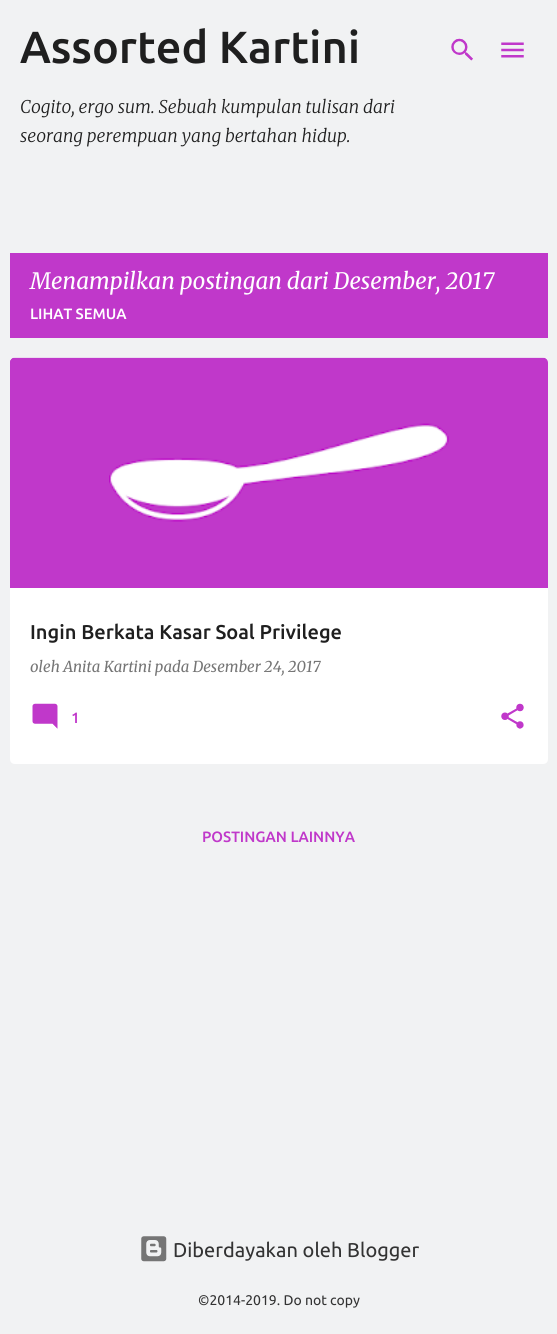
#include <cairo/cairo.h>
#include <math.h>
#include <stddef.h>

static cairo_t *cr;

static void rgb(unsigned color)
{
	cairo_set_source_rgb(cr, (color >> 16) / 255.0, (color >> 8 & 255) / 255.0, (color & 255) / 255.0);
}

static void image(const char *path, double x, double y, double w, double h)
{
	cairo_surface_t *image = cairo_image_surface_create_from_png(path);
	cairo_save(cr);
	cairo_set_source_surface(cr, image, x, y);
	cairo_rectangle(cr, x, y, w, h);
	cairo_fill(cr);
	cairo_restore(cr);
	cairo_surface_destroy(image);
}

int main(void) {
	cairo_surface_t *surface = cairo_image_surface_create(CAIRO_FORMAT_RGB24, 557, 1334);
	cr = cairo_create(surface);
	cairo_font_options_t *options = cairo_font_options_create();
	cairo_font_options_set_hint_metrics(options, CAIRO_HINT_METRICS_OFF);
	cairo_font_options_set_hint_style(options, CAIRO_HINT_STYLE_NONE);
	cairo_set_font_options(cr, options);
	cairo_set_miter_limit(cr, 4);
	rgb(0xf1f2f3);
	cairo_paint(cr);
	image("img/1.png", 451, 38, 22, 23);
	image("img/2.png", 501, 42, 23, 16);
	rgb(0xc038ca);
	cairo_rectangle(cr, 10, 253, 538, 85);
	cairo_fill(cr);
	cairo_new_path(cr);
	cairo_move_to(cr, 15, 358);
	cairo_line_to(cr, 543, 358);
	cairo_curve_to(cr, 546, 358, 548, 360, 548, 363);
	cairo_line_to(cr, 548, 588);
	cairo_line_to(cr, 10, 588);
	cairo_line_to(cr, 10, 363);
	cairo_curve_to(cr, 10, 360, 12, 358, 15, 358);
	cairo_close_path(cr);
	cairo_fill(cr);
	image("img/3.png", 10, 357, 538, 165);
	rgb(0xffffff);
	cairo_new_path(cr);
	cairo_move_to(cr, 10, 588);
	cairo_line_to(cr, 548, 588);
	cairo_line_to(cr, 548, 759);
	cairo_curve_to(cr, 548, 762, 546, 764, 543, 764);
	cairo_line_to(cr, 15, 764);
	cairo_curve_to(cr, 12, 764, 10, 762, 10, 759);
	cairo_close_path(cr);
	cairo_fill(cr);
	image("img/4.png", 32, 703, 26, 26);
	image("img/5.png", 501, 703, 23, 26);
	image("img/6.png", 141, 1236, 26, 26);
	cairo_select_font_face(cr, "Ubuntu Medium", CAIRO_FONT_SLANT_NORMAL, CAIRO_FONT_WEIGHT_NORMAL);
	cairo_set_font_size(cr, 45);
	rgb(0x1f1f1f);
	cairo_move_to(cr, 20, 63);
	cairo_show_text(cr, "Assorted Kartini");
	cairo_select_font_face(cr, "Merriweather Light", CAIRO_FONT_SLANT_ITALIC, CAIRO_FONT_WEIGHT_NORMAL);
	cairo_set_font_size(cr, 17.5);
	cairo_move_to(cr, 20, 113);
	cairo_show_text(cr, "Cogito, ergo sum. Sebuah kumpulan tulisan dari");
	cairo_move_to(cr, 20, 142);
	cairo_show_text(cr, "seorang perempuan yang bertahan hidup.");
	cairo_select_font_face(cr, "Merriweather", CAIRO_FONT_SLANT_ITALIC, CAIRO_FONT_WEIGHT_NORMAL);
	cairo_set_font_size(cr, 22.5);
	rgb(0xffffff);
	cairo_move_to(cr, 30, 289);
	cairo_show_text(cr, "Menampilkan postingan dari Desember, 2017");
	cairo_select_font_face(cr, "Ubuntu Medium", CAIRO_FONT_SLANT_NORMAL, CAIRO_FONT_WEIGHT_NORMAL);
	cairo_set_font_size(cr, 15);
	cairo_move_to(cr, 30, 319);
	cairo_show_text(cr, "LIHAT SEMUA");
	cairo_set_font_size(cr, 20);
	rgb(0x1f1f1f);
	cairo_move_to(cr, 30, 639);
	cairo_show_text(cr, "Ingin Berkata Kasar Soal Privilege");
	cairo_select_font_face(cr, "Merriweather", CAIRO_FONT_SLANT_ITALIC, CAIRO_FONT_WEIGHT_NORMAL);
	cairo_set_font_size(cr, 15);
	rgb(0x757575);
	cairo_move_to(cr, 30, 672);
	cairo_show_text(cr, "oleh Anita Kartini pada Desember 24, 2017");
	cairo_select_font_face(cr, "Ubuntu Medium", CAIRO_FONT_SLANT_NORMAL, CAIRO_FONT_WEIGHT_NORMAL);
	rgb(0xc038ca);
	cairo_move_to(cr, 71, 723);
	cairo_show_text(cr, "1");
	cairo_move_to(cr, 202, 842);
	cairo_show_text(cr, "POSTINGAN LAINNYA");
	cairo_select_font_face(cr, "Ubuntu", CAIRO_FONT_SLANT_NORMAL, CAIRO_FONT_WEIGHT_NORMAL);
	cairo_set_font_size(cr, 20);
	rgb(0x333333);
	cairo_move_to(cr, 173, 1257);
	cairo_show_text(cr, "Diberdayakan oleh Blogger");
	cairo_set_font_size(cr, 14);
	cairo_move_to(cr, 198, 1305);
	cairo_show_text(cr, "©2014-2019. Do not copy");
	cairo_surface_write_to_png(surface, "page.png");
	cairo_font_options_destroy(options);
	cairo_destroy(cr);
	cairo_surface_destroy(surface);
	return 0;
}
